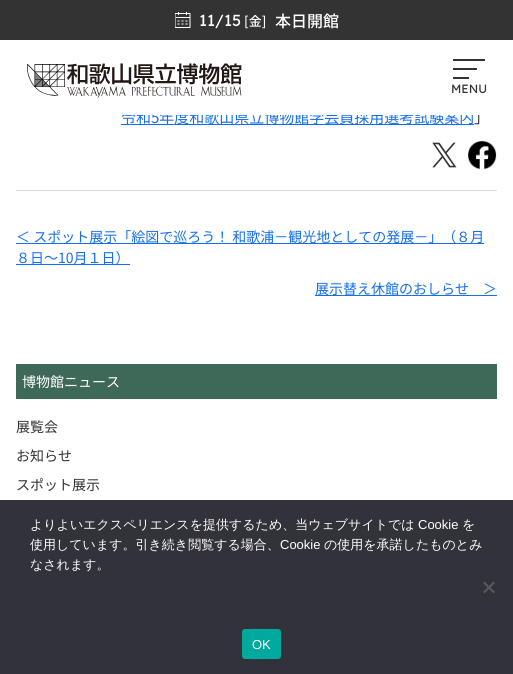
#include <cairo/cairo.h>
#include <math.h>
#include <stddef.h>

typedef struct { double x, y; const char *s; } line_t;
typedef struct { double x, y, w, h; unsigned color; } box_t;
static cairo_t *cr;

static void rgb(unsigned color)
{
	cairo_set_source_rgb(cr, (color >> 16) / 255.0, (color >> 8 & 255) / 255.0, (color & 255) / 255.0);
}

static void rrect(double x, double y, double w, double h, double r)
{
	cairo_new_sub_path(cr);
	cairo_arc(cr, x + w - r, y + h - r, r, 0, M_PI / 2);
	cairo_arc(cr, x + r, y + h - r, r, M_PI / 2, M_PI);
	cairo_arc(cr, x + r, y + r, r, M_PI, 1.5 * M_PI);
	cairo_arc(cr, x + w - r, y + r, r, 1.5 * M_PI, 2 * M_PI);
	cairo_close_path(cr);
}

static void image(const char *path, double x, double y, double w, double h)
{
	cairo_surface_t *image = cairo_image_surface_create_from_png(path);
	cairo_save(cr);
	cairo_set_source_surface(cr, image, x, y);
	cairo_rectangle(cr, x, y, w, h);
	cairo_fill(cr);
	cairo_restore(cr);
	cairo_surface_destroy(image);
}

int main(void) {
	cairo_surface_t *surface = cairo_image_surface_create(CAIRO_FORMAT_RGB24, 513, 674);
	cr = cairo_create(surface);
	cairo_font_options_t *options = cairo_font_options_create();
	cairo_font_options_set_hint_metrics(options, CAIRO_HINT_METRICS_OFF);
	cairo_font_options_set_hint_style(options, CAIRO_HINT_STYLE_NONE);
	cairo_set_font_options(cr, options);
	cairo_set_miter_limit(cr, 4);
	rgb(0xffffff);
	cairo_paint(cr);
	rgb(0x333333);
	cairo_rectangle(cr, 0, 0, 513, 40);
	cairo_fill(cr);
	image("img/1.png", 175, 12, 16, 16);
	image("img/2.png", 27, 63, 215, 35);
	{
		static const box_t items[] = {
			{453, 59, 32, 2, 0x333333},
			{453, 68, 24, 2, 0x333333},
			{453, 77, 16, 2, 0x333333},
			{121, 124, 353, 1, 0x146ef0},
		};
		for (size_t i = 0; i < sizeof items / sizeof *items; i++) {
			rgb(items[i].color);
			cairo_rectangle(cr, items[i].x, items[i].y, items[i].w, items[i].h);
			cairo_fill(cr);
		}
	}
	image("img/3.png", 432, 142, 25, 26);
	image("img/4.png", 468, 141, 29, 29);
	{
		static const box_t items[] = {
			{16, 190, 481, 1, 0xdddddd},
			{16, 243, 468, 1, 0x146ef0},
			{16, 264, 114, 1, 0x146ef0},
			{315, 295, 182, 1, 0x146ef0},
			{16, 364, 481, 35, 0x3e6858},
			{0, 500, 513, 174, 0x32323a},
		};
		for (size_t i = 0; i < sizeof items / sizeof *items; i++) {
			rgb(items[i].color);
			cairo_rectangle(cr, items[i].x, items[i].y, items[i].w, items[i].h);
			cairo_fill(cr);
		}
	}
	rgb(0x59595d);
	cairo_new_path(cr);
	cairo_move_to(cr, 493.5, 581.5);
	cairo_line_to(cr, 495, 583);
	cairo_line_to(cr, 484.5, 593.5);
	cairo_line_to(cr, 483, 592);
	cairo_close_path(cr);
	cairo_fill(cr);
	cairo_new_path(cr);
	cairo_move_to(cr, 483, 583);
	cairo_line_to(cr, 484.5, 581.5);
	cairo_line_to(cr, 495, 592);
	cairo_line_to(cr, 493.5, 593.5);
	cairo_close_path(cr);
	cairo_fill(cr);
	rgb(0x00a99d);
	rrect(242, 629, 39, 30, 3);
	cairo_fill(cr);
	cairo_select_font_face(cr, "Lexend", CAIRO_FONT_SLANT_NORMAL, CAIRO_FONT_WEIGHT_NORMAL);
	cairo_set_font_size(cr, 16);
	rgb(0xffffff);
	cairo_move_to(cr, 199, 26);
	cairo_show_text(cr, "11/15");
	cairo_select_font_face(cr, "Noto Sans JP Medium", CAIRO_FONT_SLANT_NORMAL, CAIRO_FONT_WEIGHT_NORMAL);
	cairo_set_font_size(cr, 13);
	cairo_move_to(cr, 244, 26);
	cairo_show_text(cr, "[金]");
	cairo_set_font_size(cr, 16);
	cairo_move_to(cr, 275, 27);
	cairo_show_text(cr, "本日開館");
	cairo_select_font_face(cr, "Lexend", CAIRO_FONT_SLANT_NORMAL, CAIRO_FONT_WEIGHT_NORMAL);
	cairo_set_font_size(cr, 12);
	rgb(0x333333);
	cairo_move_to(cr, 451, 93);
	cairo_show_text(cr, "MENU");
	cairo_select_font_face(cr, "Noto Sans JP", CAIRO_FONT_SLANT_NORMAL, CAIRO_FONT_WEIGHT_NORMAL);
	cairo_set_font_size(cr, 15);
	rgb(0x146ef0);
	cairo_move_to(cr, 121, 123);
	cairo_show_text(cr, "令和5年度和歌山県立博物館学芸員採用選考試験案内");
	rgb(0x333333);
	cairo_move_to(cr, 474, 123);
	cairo_show_text(cr, "」");
	rgb(0xffffff);
	cairo_rectangle(cr, 123, 110, 357, 5);
	cairo_fill(cr);
	cairo_set_font_size(cr, 14);
	rgb(0x146ef0);
	{
		static const line_t items[] = {
			{16, 242, "＜ スポット展示「絵図で巡ろう！ 和歌浦－観光地としての発展－」（８月"},
			{16, 263, "８日～10月１日）"},
			{315, 294, "展示替え休館のおしらせ　＞"},
		};
		for (size_t i = 0; i < sizeof items / sizeof *items; i++) {
			cairo_move_to(cr, items[i].x, items[i].y);
			cairo_show_text(cr, items[i].s);
		}
	}
	rgb(0xffffff);
	cairo_move_to(cr, 22, 387);
	cairo_show_text(cr, "博物館ニュース");
	rgb(0x333333);
	{
		static const line_t items[] = {
			{16, 432, "展覧会"},
			{16, 461, "お知らせ"},
			{16, 490, "スポット展示"},
		};
		for (size_t i = 0; i < sizeof items / sizeof *items; i++) {
			cairo_move_to(cr, items[i].x, items[i].y);
			cairo_show_text(cr, items[i].s);
		}
	}
	cairo_select_font_face(cr, "WenQuanYi Zen Hei Medium", CAIRO_FONT_SLANT_NORMAL, CAIRO_FONT_WEIGHT_NORMAL);
	cairo_set_font_size(cr, 13);
	rgb(0xffffff);
	cairo_move_to(cr, 30, 529);
	cairo_show_text(cr, "よりよいエクスペリエンスを提供するため、当ウェブサイトでは");
	cairo_select_font_face(cr, "Liberation Sans", CAIRO_FONT_SLANT_NORMAL, CAIRO_FONT_WEIGHT_NORMAL);
	cairo_move_to(cr, 418, 529);
	cairo_show_text(cr, "Cookie");
	cairo_select_font_face(cr, "WenQuanYi Zen Hei Medium", CAIRO_FONT_SLANT_NORMAL, CAIRO_FONT_WEIGHT_NORMAL);
	cairo_move_to(cr, 462, 529);
	cairo_show_text(cr, "を");
	cairo_move_to(cr, 30, 549);
	cairo_show_text(cr, "使用しています。引き続き閲覧する場合、");
	cairo_select_font_face(cr, "Liberation Sans", CAIRO_FONT_SLANT_NORMAL, CAIRO_FONT_WEIGHT_NORMAL);
	cairo_move_to(cr, 280, 549);
	cairo_show_text(cr, "Cookie");
	cairo_select_font_face(cr, "WenQuanYi Zen Hei Medium", CAIRO_FONT_SLANT_NORMAL, CAIRO_FONT_WEIGHT_NORMAL);
	cairo_move_to(cr, 324, 549);
	cairo_show_text(cr, "の使用を承諾したものとみ");
	cairo_move_to(cr, 30, 569);
	cairo_show_text(cr, "なされます。");
	cairo_select_font_face(cr, "Liberation Sans", CAIRO_FONT_SLANT_NORMAL, CAIRO_FONT_WEIGHT_NORMAL);
	cairo_move_to(cr, 252, 649);
	cairo_show_text(cr, "OK");
	cairo_surface_write_to_png(surface, "page.png");
	cairo_font_options_destroy(options);
	cairo_destroy(cr);
	cairo_surface_destroy(surface);
	return 0;
}
